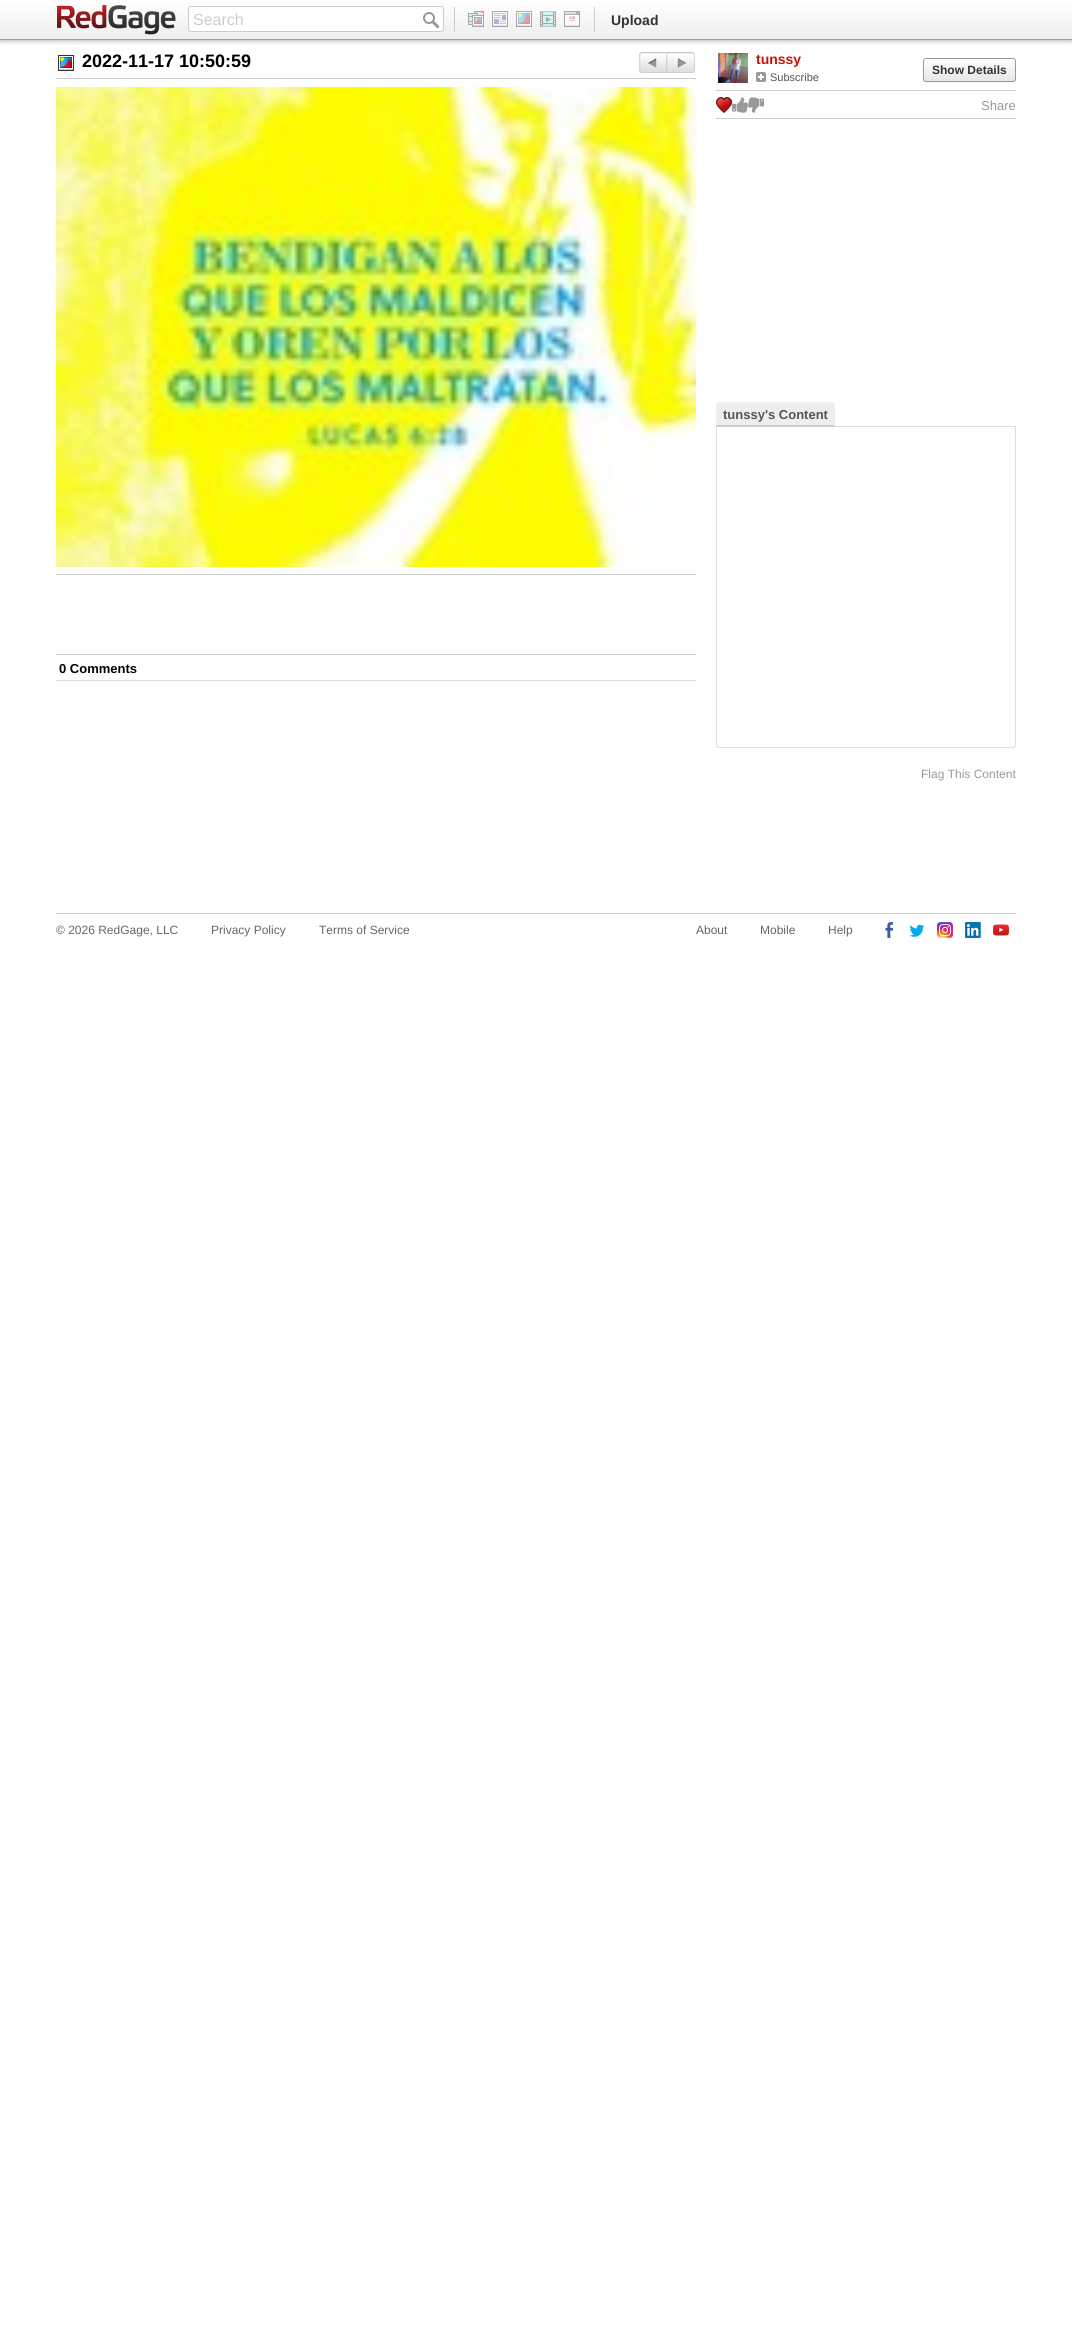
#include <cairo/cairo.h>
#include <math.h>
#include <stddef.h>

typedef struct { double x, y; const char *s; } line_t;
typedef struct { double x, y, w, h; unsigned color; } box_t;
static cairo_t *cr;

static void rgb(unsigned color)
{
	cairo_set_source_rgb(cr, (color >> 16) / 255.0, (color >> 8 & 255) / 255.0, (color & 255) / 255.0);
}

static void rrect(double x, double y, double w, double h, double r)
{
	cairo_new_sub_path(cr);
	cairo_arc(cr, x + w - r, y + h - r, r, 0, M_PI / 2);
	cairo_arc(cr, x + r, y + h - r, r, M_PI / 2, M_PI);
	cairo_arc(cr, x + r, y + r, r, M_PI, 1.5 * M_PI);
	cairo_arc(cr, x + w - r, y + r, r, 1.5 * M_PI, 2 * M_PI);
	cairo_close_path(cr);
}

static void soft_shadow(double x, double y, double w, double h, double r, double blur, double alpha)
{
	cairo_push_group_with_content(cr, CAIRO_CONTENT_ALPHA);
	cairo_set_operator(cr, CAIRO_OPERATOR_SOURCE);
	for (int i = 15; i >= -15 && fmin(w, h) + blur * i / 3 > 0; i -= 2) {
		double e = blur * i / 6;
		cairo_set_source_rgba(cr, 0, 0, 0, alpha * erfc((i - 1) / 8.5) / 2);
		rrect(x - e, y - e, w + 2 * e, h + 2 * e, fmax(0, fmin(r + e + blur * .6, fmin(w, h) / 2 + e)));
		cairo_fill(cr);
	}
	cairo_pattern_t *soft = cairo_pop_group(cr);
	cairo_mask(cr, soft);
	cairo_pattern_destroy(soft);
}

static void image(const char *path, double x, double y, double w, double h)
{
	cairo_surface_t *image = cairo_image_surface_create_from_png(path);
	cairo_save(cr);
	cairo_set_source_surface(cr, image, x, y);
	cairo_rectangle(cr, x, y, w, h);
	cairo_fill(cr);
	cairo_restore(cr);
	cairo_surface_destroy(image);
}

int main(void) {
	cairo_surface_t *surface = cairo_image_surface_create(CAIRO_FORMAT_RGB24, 1072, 2346);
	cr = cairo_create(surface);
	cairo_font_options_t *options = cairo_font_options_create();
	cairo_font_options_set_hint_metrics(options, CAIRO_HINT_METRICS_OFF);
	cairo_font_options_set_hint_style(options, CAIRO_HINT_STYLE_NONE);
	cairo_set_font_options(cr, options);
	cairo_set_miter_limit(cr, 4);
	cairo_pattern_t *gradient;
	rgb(0xffffff);
	cairo_paint(cr);
	rgb(0x000000);
	soft_shadow(0, 0, 1072, 40, 0, 3, 0.4);
	gradient = cairo_pattern_create_linear(536, 0, 536, 39);
	cairo_pattern_add_color_stop_rgba(gradient, 0, 1, 1, 1, 1);
	cairo_pattern_add_color_stop_rgba(gradient, 1, 0.933, 0.933, 0.933, 1);
	cairo_set_source(cr, gradient);
	cairo_pattern_destroy(gradient);
	cairo_rectangle(cr, 0, 0, 1072, 39);
	cairo_fill(cr);
	rgb(0x999999);
	cairo_rectangle(cr, 0, 39, 1072, 1);
	cairo_fill(cr);
	image("img/1.png", 57, 5, 119, 30);
	rgb(0xffffff);
	rrect(188.5, 6.5, 255, 25, 2.5);
	cairo_fill_preserve(cr);
	rgb(0xcccccc);
	cairo_set_line_width(cr, 1);
	cairo_stroke(cr);
	image("img/2.png", 423, 12, 16, 16);
	cairo_rectangle(cr, 594, 7, 1, 25);
	cairo_fill(cr);
	cairo_rectangle(cr, 454, 7, 1, 25);
	cairo_fill(cr);
	image("img/3.png", 468, 11, 16, 16);
	image("img/4.png", 492, 11, 16, 16);
	image("img/5.png", 516, 11, 16, 16);
	image("img/6.png", 540, 11, 16, 16);
	image("img/7.png", 564, 11, 16, 16);
	cairo_rectangle(cr, 56, 78, 640, 1);
	cairo_fill(cr);
	image("img/8.png", 58, 55, 16, 16);
	image("img/9.png", 639, 52, 27, 21);
	image("img/10.png", 666, 52, 29, 21);
	image("img/11.png", 56, 87, 640, 480);
	{
		static const box_t items[] = {
			{56, 574, 640, 1, 0xcccccc},
			{56, 654, 640, 1, 0xcccccc},
			{56, 680, 640, 1, 0xdddddd},
		};
		for (size_t i = 0; i < sizeof items / sizeof *items; i++) {
			rgb(items[i].color);
			cairo_rectangle(cr, items[i].x, items[i].y, items[i].w, items[i].h);
			cairo_fill(cr);
		}
	}
	image("img/12.png", 718, 53, 30, 30);
	image("img/13.png", 756, 72, 10, 10);
	rgb(0x000000);
	soft_shadow(923, 59, 93, 24, 3, 1, 0.05);
	cairo_save(cr);
	rrect(923, 58, 93, 24, 3);
	cairo_clip(cr);
	gradient = cairo_pattern_create_linear(970, 59, 970, 81);
	cairo_pattern_add_color_stop_rgba(gradient, 0, 1, 1, 1, 1);
	cairo_pattern_add_color_stop_rgba(gradient, 1, 0.902, 0.902, 0.902, 1);
	cairo_set_source(cr, gradient);
	cairo_pattern_destroy(gradient);
	cairo_rectangle(cr, 923, 59, 93, 22);
	cairo_fill(cr);
	cairo_restore(cr);
	rrect(923.5, 58.5, 92, 23, 2.5);
	rgb(0x999999);
	cairo_stroke(cr);
	rgb(0xcccccc);
	cairo_rectangle(cr, 716, 90, 300, 1);
	cairo_fill(cr);
	cairo_rectangle(cr, 716, 118, 300, 1);
	cairo_fill(cr);
	image("img/14.png", 716, 97, 16, 16);
	image("img/15.png", 732, 97, 16, 16);
	image("img/16.png", 748, 97, 16, 16);
	rgb(0xdddddd);
	cairo_rectangle(cr, 835, 426, 181, 1);
	cairo_fill(cr);
	rgb(0xeeeeee);
	cairo_new_path(cr);
	cairo_move_to(cr, 719, 402);
	cairo_line_to(cr, 832, 402);
	cairo_curve_to(cr, 833.5, 402, 835, 403.5, 835, 405);
	cairo_line_to(cr, 835, 427);
	cairo_line_to(cr, 716, 427);
	cairo_line_to(cr, 716, 405);
	cairo_curve_to(cr, 716, 403.5, 717.5, 402, 719, 402);
	cairo_close_path(cr);
	cairo_fill(cr);
	rgb(0xcccccc);
	cairo_new_path(cr);
	cairo_move_to(cr, 835, 427);
	cairo_line_to(cr, 834, 425);
	cairo_line_to(cr, 717, 425);
	cairo_line_to(cr, 716, 427);
	cairo_close_path(cr);
	cairo_fill(cr);
	rgb(0xdddddd);
	cairo_set_fill_rule(cr, CAIRO_FILL_RULE_EVEN_ODD);
	cairo_new_path(cr);
	cairo_move_to(cr, 716, 427);
	cairo_line_to(cr, 1016, 427);
	cairo_line_to(cr, 1016, 745);
	cairo_curve_to(cr, 1016, 747, 1015, 748, 1013, 748);
	cairo_line_to(cr, 719, 748);
	cairo_curve_to(cr, 717, 748, 716, 747, 716, 745);
	cairo_close_path(cr);
	cairo_move_to(cr, 717, 427);
	cairo_line_to(cr, 1015, 427);
	cairo_line_to(cr, 1015, 745);
	cairo_curve_to(cr, 1015, 746, 1014, 747, 1013, 747);
	cairo_line_to(cr, 719, 747);
	cairo_curve_to(cr, 718, 747, 717, 746, 717, 745);
	cairo_close_path(cr);
	cairo_fill(cr);
	rgb(0xcccccc);
	cairo_rectangle(cr, 56, 913, 960, 1);
	cairo_fill(cr);
	image("img/17.png", 885, 922, 8, 16);
	image("img/18.png", 909, 924, 16, 13);
	image("img/19.png", 937, 922, 16, 16);
	image("img/20.png", 965, 922, 16, 16);
	image("img/21.png", 993, 924, 16, 12);
	cairo_select_font_face(cr, "Liberation Sans", CAIRO_FONT_SLANT_NORMAL, CAIRO_FONT_WEIGHT_NORMAL);
	cairo_set_font_size(cr, 16);
	cairo_move_to(cr, 193, 25);
	cairo_show_text(cr, "Search");
	cairo_select_font_face(cr, "Liberation Sans", CAIRO_FONT_SLANT_NORMAL, CAIRO_FONT_WEIGHT_BOLD);
	cairo_set_font_size(cr, 14);
	rgb(0x333333);
	cairo_move_to(cr, 611, 25);
	cairo_show_text(cr, "Upload");
	cairo_set_font_size(cr, 18);
	rgb(0x000000);
	cairo_move_to(cr, 82, 67);
	cairo_show_text(cr, "2022-11-17 10:50:59");
	cairo_set_font_size(cr, 13);
	cairo_move_to(cr, 59, 673);
	cairo_show_text(cr, "0 Comments");
	cairo_set_font_size(cr, 14);
	rgb(0xcc1100);
	cairo_move_to(cr, 756, 64);
	cairo_show_text(cr, "tunssy");
	cairo_select_font_face(cr, "Liberation Sans", CAIRO_FONT_SLANT_NORMAL, CAIRO_FONT_WEIGHT_NORMAL);
	cairo_set_font_size(cr, 11);
	rgb(0x555555);
	cairo_move_to(cr, 770, 81);
	cairo_show_text(cr, "Subscribe");
	cairo_select_font_face(cr, "Liberation Sans", CAIRO_FONT_SLANT_NORMAL, CAIRO_FONT_WEIGHT_BOLD);
	cairo_set_font_size(cr, 12);
	rgb(0x333333);
	cairo_move_to(cr, 932, 74);
	cairo_show_text(cr, "Show Details");
	cairo_select_font_face(cr, "Liberation Sans", CAIRO_FONT_SLANT_NORMAL, CAIRO_FONT_WEIGHT_NORMAL);
	cairo_set_font_size(cr, 13);
	rgb(0x999999);
	cairo_move_to(cr, 981, 110);
	cairo_show_text(cr, "Share");
	cairo_select_font_face(cr, "Liberation Sans", CAIRO_FONT_SLANT_NORMAL, CAIRO_FONT_WEIGHT_BOLD);
	rgb(0x555555);
	cairo_move_to(cr, 723, 419);
	cairo_show_text(cr, "tunssy's Content");
	cairo_select_font_face(cr, "Liberation Sans", CAIRO_FONT_SLANT_NORMAL, CAIRO_FONT_WEIGHT_NORMAL);
	cairo_set_font_size(cr, 12);
	rgb(0x999999);
	cairo_move_to(cr, 921, 778);
	cairo_show_text(cr, "Flag This Content");
	rgb(0x666666);
	{
		static const line_t items[] = {
			{56, 934, "© 2026 RedGage, LLC"},
			{211, 934, "Privacy Policy"},
			{319, 934, "Terms of Service"},
			{696, 934, "About"},
			{760, 934, "Mobile"},
			{828, 934, "Help"},
		};
		for (size_t i = 0; i < sizeof items / sizeof *items; i++) {
			cairo_move_to(cr, items[i].x, items[i].y);
			cairo_show_text(cr, items[i].s);
		}
	}
	cairo_surface_write_to_png(surface, "page.png");
	cairo_font_options_destroy(options);
	cairo_destroy(cr);
	cairo_surface_destroy(surface);
	return 0;
}
